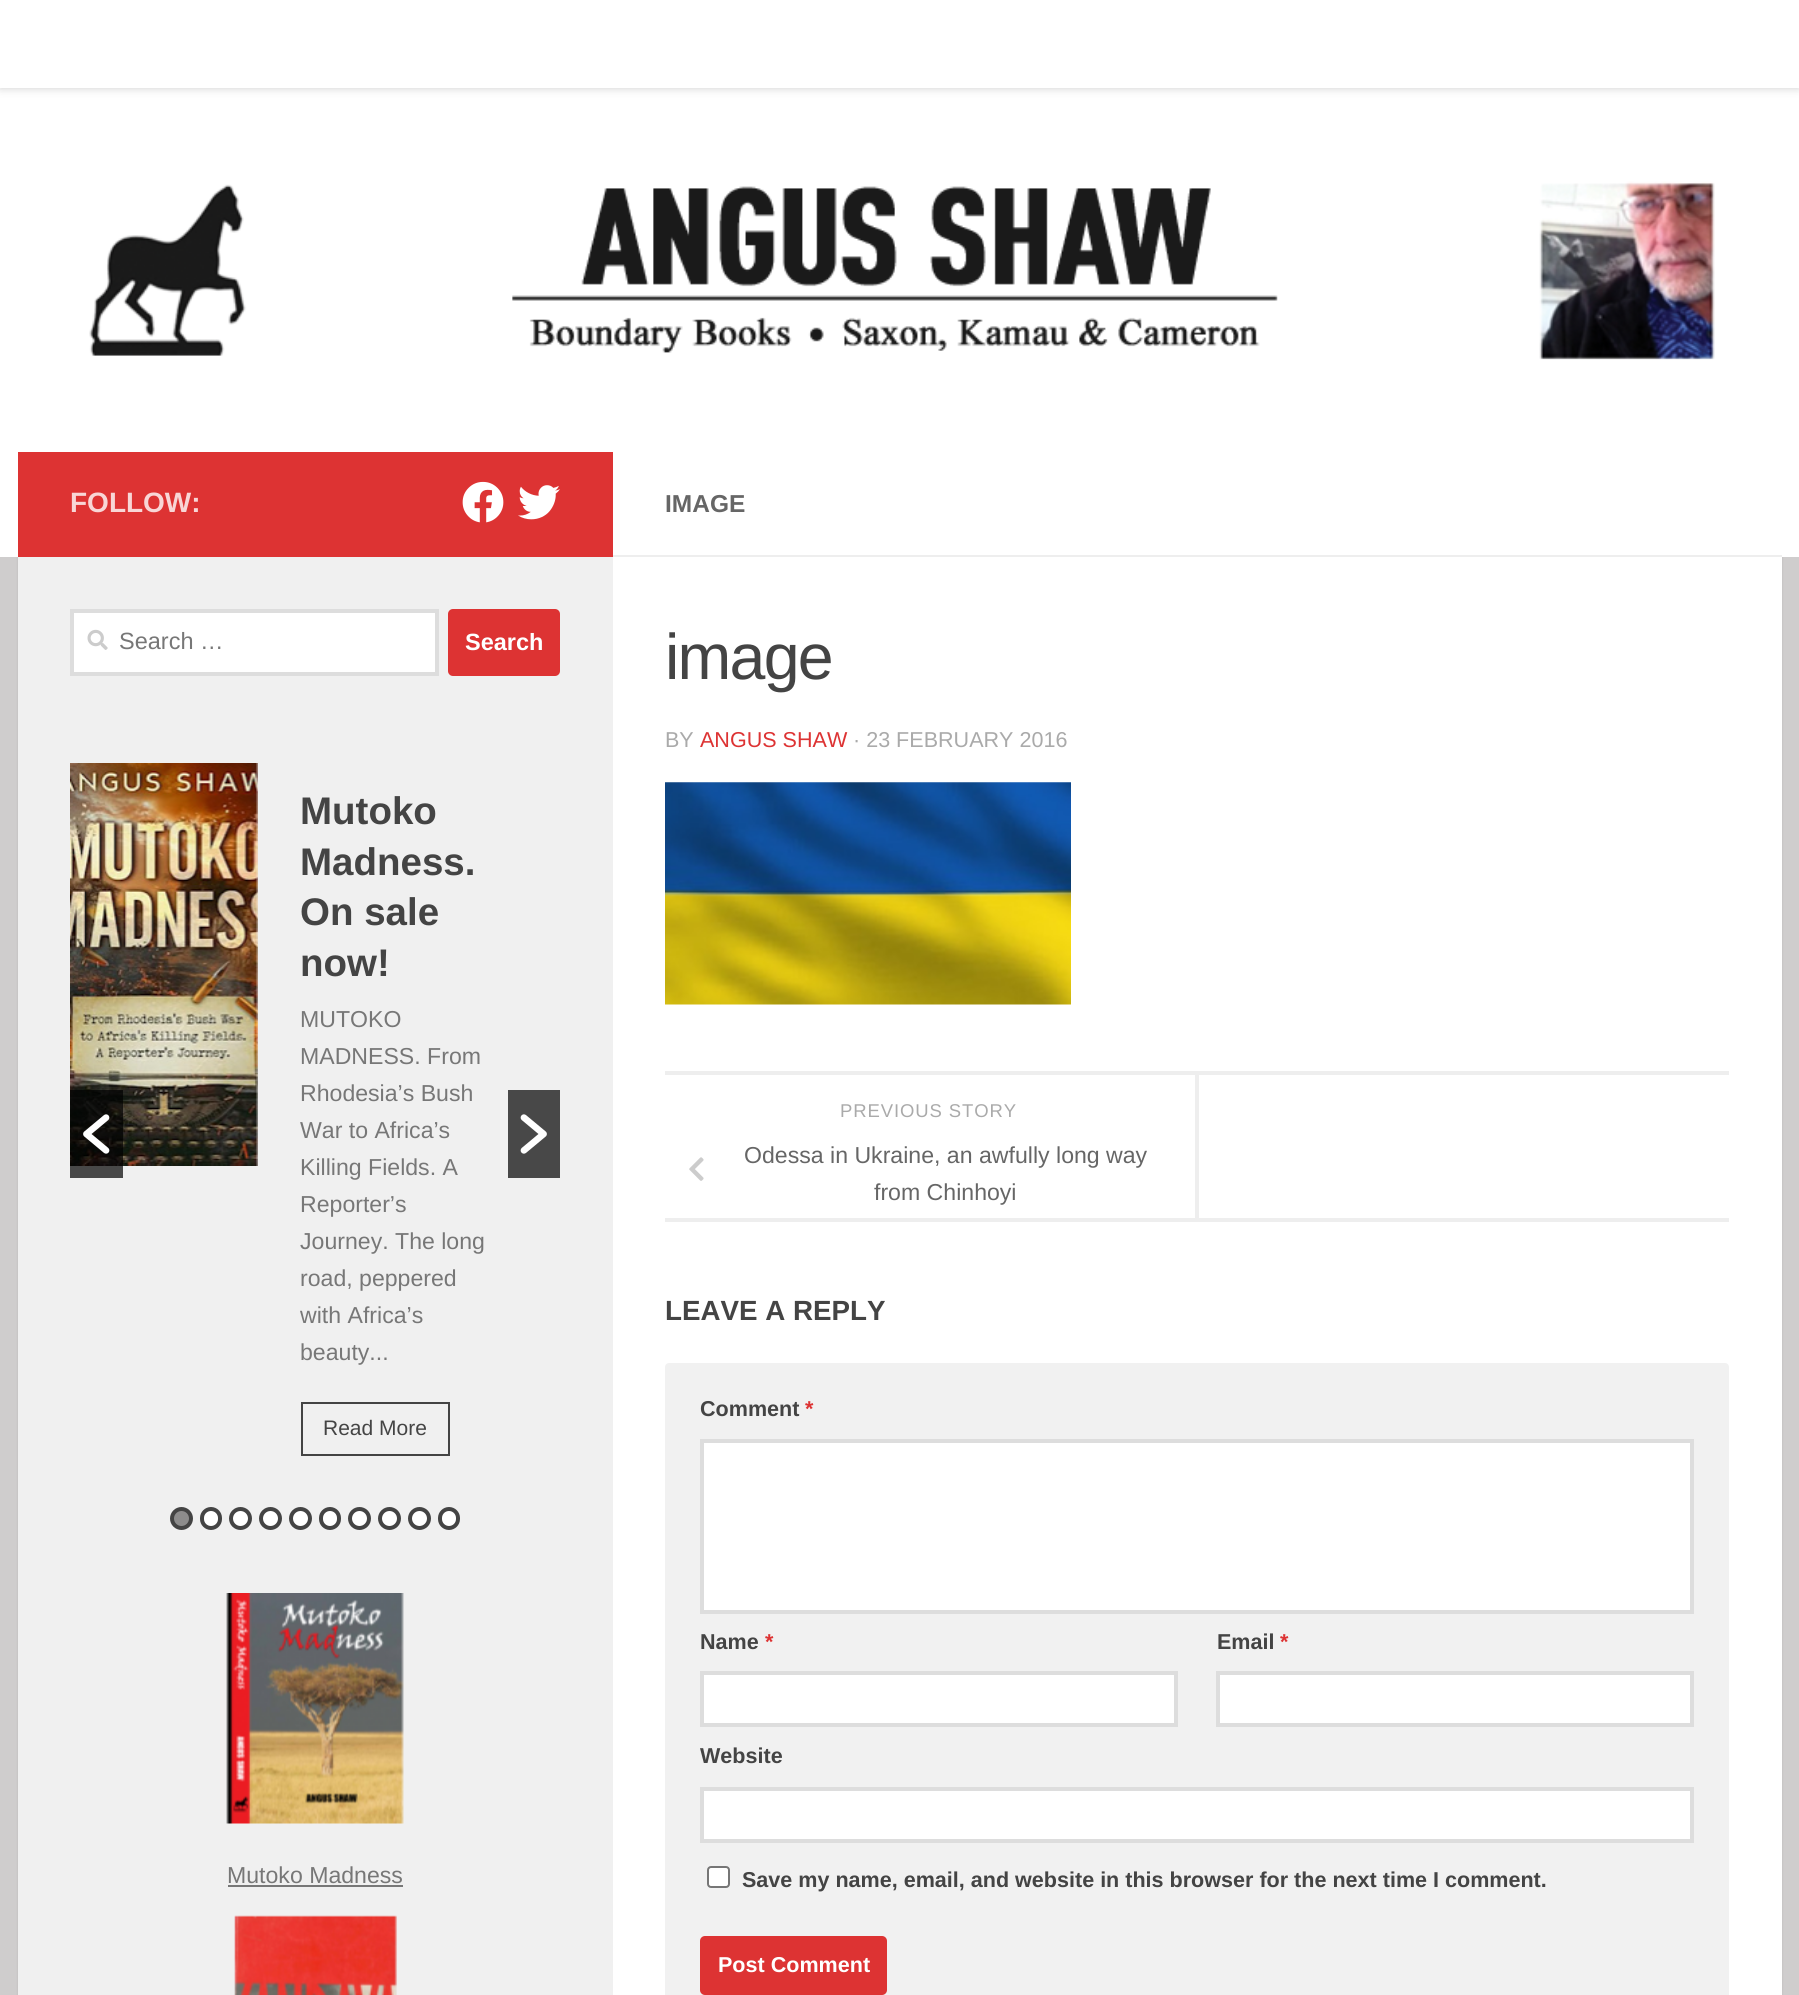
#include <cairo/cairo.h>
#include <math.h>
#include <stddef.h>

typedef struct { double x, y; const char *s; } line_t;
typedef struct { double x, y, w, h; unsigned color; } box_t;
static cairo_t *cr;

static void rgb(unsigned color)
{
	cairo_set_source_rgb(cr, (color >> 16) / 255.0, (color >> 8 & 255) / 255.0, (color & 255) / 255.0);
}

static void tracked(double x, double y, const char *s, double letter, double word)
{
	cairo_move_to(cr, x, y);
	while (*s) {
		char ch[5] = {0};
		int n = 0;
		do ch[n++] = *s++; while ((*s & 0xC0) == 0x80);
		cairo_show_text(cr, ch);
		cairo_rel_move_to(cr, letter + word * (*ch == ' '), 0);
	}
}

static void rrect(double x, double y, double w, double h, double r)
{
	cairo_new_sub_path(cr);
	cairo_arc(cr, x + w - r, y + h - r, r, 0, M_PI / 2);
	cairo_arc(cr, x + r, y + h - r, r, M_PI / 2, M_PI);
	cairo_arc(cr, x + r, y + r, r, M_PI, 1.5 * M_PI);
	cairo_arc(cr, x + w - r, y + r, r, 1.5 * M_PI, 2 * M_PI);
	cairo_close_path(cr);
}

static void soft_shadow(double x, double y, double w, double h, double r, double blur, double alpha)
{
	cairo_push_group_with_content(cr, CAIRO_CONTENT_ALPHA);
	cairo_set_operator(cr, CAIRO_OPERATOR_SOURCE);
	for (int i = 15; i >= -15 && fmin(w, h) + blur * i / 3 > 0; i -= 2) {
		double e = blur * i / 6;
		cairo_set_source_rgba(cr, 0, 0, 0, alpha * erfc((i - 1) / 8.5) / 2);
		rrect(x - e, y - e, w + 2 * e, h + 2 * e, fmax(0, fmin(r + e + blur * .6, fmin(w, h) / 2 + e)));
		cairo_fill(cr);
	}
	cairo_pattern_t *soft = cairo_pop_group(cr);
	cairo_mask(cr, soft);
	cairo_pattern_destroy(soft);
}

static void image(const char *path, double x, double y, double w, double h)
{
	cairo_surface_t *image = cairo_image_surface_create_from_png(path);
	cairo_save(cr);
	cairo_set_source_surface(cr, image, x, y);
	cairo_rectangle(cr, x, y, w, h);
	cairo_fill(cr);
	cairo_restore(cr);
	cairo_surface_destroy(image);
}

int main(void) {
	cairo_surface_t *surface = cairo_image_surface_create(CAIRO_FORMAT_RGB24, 1799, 1995);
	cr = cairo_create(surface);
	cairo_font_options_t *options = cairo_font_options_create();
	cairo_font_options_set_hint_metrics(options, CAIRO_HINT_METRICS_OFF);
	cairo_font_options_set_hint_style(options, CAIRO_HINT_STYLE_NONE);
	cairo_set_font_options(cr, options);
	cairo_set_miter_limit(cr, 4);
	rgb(0xcfcdcd);
	cairo_paint(cr);
	rgb(0x000000);
	soft_shadow(18, 453, 1764, 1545, 0, 1, 0.1);
	rgb(0xffffff);
	cairo_rectangle(cr, 0, 88, 1799, 469);
	cairo_fill(cr);
	rgb(0x000000);
	soft_shadow(0, 0, 1799, 88, 0, 4.5, 0.2);
	rgb(0xffffff);
	cairo_rectangle(cr, 0, 0, 1799, 88);
	cairo_fill(cr);
	image("img/1.png", 89, 181, 1626, 179);
	cairo_rectangle(cr, 613, 557, 1169, 1438);
	cairo_fill(cr);
	rgb(0xdd3333);
	cairo_rectangle(cr, 18, 452, 595, 105);
	cairo_fill(cr);
	image("img/2.png", 462, 481, 42, 42);
	image("img/3.png", 518, 485, 42, 35);
	rgb(0xf0f0f0);
	cairo_rectangle(cr, 18, 557, 595, 1438);
	cairo_fill(cr);
	rgb(0xffffff);
	cairo_rectangle(cr, 72, 611, 365, 63);
	cairo_fill_preserve(cr);
	rgb(0xdddddd);
	cairo_set_line_width(cr, 4);
	cairo_stroke(cr);
	image("img/4.png", 87, 629, 21, 21);
	rgb(0xdd3333);
	rrect(448, 609, 112, 67, 5);
	cairo_fill(cr);
	image("img/6.png", 70, 763, 188, 403);
	cairo_set_source_rgba(cr, 0, 0, 0, 0.7);
	cairo_rectangle(cr, 70, 1090, 53, 88);
	cairo_fill(cr);
	image("img/5.png", 83, 1114, 27, 40);
	cairo_rectangle(cr, 302, 1403, 147, 52);
	rgb(0x444444);
	cairo_set_line_width(cr, 2);
	cairo_stroke(cr);
	rgb(0x484848);
	cairo_rectangle(cr, 508, 1090, 52, 88);
	cairo_fill(cr);
	image("img/7.png", 520, 1114, 27, 40);
	rgb(0x8d8c8c);
	cairo_arc(cr, 181.5, 1518.5, 9.5, 0, 2 * M_PI);
	cairo_fill_preserve(cr);
	rgb(0x444444);
	cairo_set_line_width(cr, 4);
	cairo_stroke(cr);
	rgb(0xffffff);
	rrect(202, 1509, 18, 19, 9);
	cairo_fill_preserve(cr);
	rgb(0x444444);
	cairo_stroke(cr);
	rgb(0xffffff);
	cairo_arc(cr, 240.5, 1518.5, 9.5, 0, 2 * M_PI);
	cairo_fill_preserve(cr);
	rgb(0x444444);
	cairo_stroke(cr);
	rgb(0xffffff);
	cairo_arc(cr, 270.5, 1518.5, 9.5, 0, 2 * M_PI);
	cairo_fill_preserve(cr);
	rgb(0x444444);
	cairo_stroke(cr);
	rgb(0xffffff);
	cairo_arc(cr, 300.5, 1518.5, 9.5, 0, 2 * M_PI);
	cairo_fill_preserve(cr);
	rgb(0x444444);
	cairo_stroke(cr);
	rgb(0xffffff);
	rrect(321, 1509, 18, 19, 9);
	cairo_fill_preserve(cr);
	rgb(0x444444);
	cairo_stroke(cr);
	rgb(0xffffff);
	cairo_arc(cr, 359.5, 1518.5, 9.5, 0, 2 * M_PI);
	cairo_fill_preserve(cr);
	rgb(0x444444);
	cairo_stroke(cr);
	rgb(0xffffff);
	cairo_arc(cr, 389.5, 1518.5, 9.5, 0, 2 * M_PI);
	cairo_fill_preserve(cr);
	rgb(0x444444);
	cairo_stroke(cr);
	rgb(0xffffff);
	cairo_arc(cr, 419.5, 1518.5, 9.5, 0, 2 * M_PI);
	cairo_fill_preserve(cr);
	rgb(0x444444);
	cairo_stroke(cr);
	rgb(0xffffff);
	rrect(440, 1509, 18, 19, 9);
	cairo_fill_preserve(cr);
	rgb(0x444444);
	cairo_stroke(cr);
	image("img/8.png", 226, 1593, 178, 231);
	rgb(0x777777);
	cairo_rectangle(cr, 228, 1885, 175, 2);
	cairo_fill(cr);
	image("img/9.png", 234, 1915, 163, 80);
	rgb(0xeeeeee);
	cairo_rectangle(cr, 613, 555, 1169, 2);
	cairo_fill(cr);
	image("img/10.png", 665, 782, 406, 223);
	{
		static const box_t items[] = {
			{665, 1071, 1064, 4, 0xeeeeee},
			{665, 1218, 1064, 4, 0xeeeeee},
			{1195, 1075, 4, 143, 0xeeeeee},
		};
		for (size_t i = 0; i < sizeof items / sizeof *items; i++) {
			rgb(items[i].color);
			cairo_rectangle(cr, items[i].x, items[i].y, items[i].w, items[i].h);
			cairo_fill(cr);
		}
	}
	image("img/11.png", 689, 1157, 15, 24);
	rgb(0xf1f1f1);
	rrect(665, 1363, 1064, 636, 4);
	cairo_fill(cr);
	rgb(0xffffff);
	cairo_rectangle(cr, 702, 1441, 990, 171);
	cairo_fill_preserve(cr);
	rgb(0xdddddd);
	cairo_stroke(cr);
	rgb(0xffffff);
	cairo_rectangle(cr, 702, 1673, 474, 52);
	cairo_fill_preserve(cr);
	rgb(0xdddddd);
	cairo_stroke(cr);
	rgb(0xffffff);
	cairo_rectangle(cr, 1218, 1673, 474, 52);
	cairo_fill_preserve(cr);
	rgb(0xdddddd);
	cairo_stroke(cr);
	rgb(0xffffff);
	cairo_rectangle(cr, 702, 1789, 990, 52);
	cairo_fill_preserve(cr);
	rgb(0xdddddd);
	cairo_stroke(cr);
	rgb(0xffffff);
	rrect(708, 1867, 21, 20, 3);
	cairo_fill_preserve(cr);
	rgb(0x767676);
	cairo_set_line_width(cr, 2);
	cairo_stroke(cr);
	rgb(0xdd3333);
	rrect(700, 1936, 187, 59, 5);
	cairo_fill(cr);
	cairo_select_font_face(cr, "Liberation Sans", CAIRO_FONT_SLANT_NORMAL, CAIRO_FONT_WEIGHT_BOLD);
	cairo_set_font_size(cr, 28);
	rgb(0xf8d6d6);
	cairo_move_to(cr, 70, 512);
	cairo_show_text(cr, "FOLLOW:");
	cairo_select_font_face(cr, "Liberation Sans", CAIRO_FONT_SLANT_NORMAL, CAIRO_FONT_WEIGHT_NORMAL);
	cairo_set_font_size(cr, 23.5);
	rgb(0x777777);
	cairo_move_to(cr, 119, 649);
	cairo_show_text(cr, "Search …");
	cairo_select_font_face(cr, "Liberation Sans", CAIRO_FONT_SLANT_NORMAL, CAIRO_FONT_WEIGHT_BOLD);
	rgb(0xffffff);
	cairo_move_to(cr, 465, 650);
	cairo_show_text(cr, "Search");
	cairo_set_font_size(cr, 38.5);
	rgb(0x444444);
	{
		static const line_t items[] = {
			{300, 824, "Mutoko"},
			{300, 875, "Madness."},
			{300, 925, "On sale"},
			{300, 976, "now!"},
		};
		for (size_t i = 0; i < sizeof items / sizeof *items; i++) {
			cairo_move_to(cr, items[i].x, items[i].y);
			cairo_show_text(cr, items[i].s);
		}
	}
	cairo_select_font_face(cr, "Liberation Sans", CAIRO_FONT_SLANT_NORMAL, CAIRO_FONT_WEIGHT_NORMAL);
	cairo_set_font_size(cr, 23.1);
	rgb(0x777777);
	{
		static const line_t items[] = {
			{300, 1027, "MUTOKO"},
			{300, 1064, "MADNESS. From"},
			{300, 1101, "Rhodesia’s Bush"},
			{300, 1138, "War to Africa’s"},
			{300, 1175, "Killing Fields. A"},
			{300, 1212, "Reporter’s"},
			{300, 1249, "Journey. The long"},
			{300, 1286, "road, peppered"},
			{300, 1323, "with Africa’s"},
			{300, 1360, "beauty..."},
		};
		for (size_t i = 0; i < sizeof items / sizeof *items; i++) {
			cairo_move_to(cr, items[i].x, items[i].y);
			cairo_show_text(cr, items[i].s);
		}
	}
	cairo_set_font_size(cr, 21);
	rgb(0x444444);
	cairo_move_to(cr, 323, 1435);
	cairo_show_text(cr, "Read More");
	cairo_set_font_size(cr, 23.1);
	rgb(0x777777);
	cairo_move_to(cr, 227, 1883);
	cairo_show_text(cr, "Mutoko Madness");
	cairo_select_font_face(cr, "Liberation Sans", CAIRO_FONT_SLANT_NORMAL, CAIRO_FONT_WEIGHT_BOLD);
	cairo_set_font_size(cr, 24.5);
	rgb(0x666666);
	cairo_move_to(cr, 665, 512);
	cairo_show_text(cr, "IMAGE");
	cairo_select_font_face(cr, "Liberation Sans", CAIRO_FONT_SLANT_NORMAL, CAIRO_FONT_WEIGHT_NORMAL);
	cairo_set_font_size(cr, 64.5);
	rgb(0x444444);
	tracked(665, 679, "image", -1.75, 0);
	cairo_set_font_size(cr, 21.55);
	rgb(0xaaaaaa);
	cairo_move_to(cr, 665, 747);
	cairo_show_text(cr, "BY");
	rgb(0xdd3333);
	cairo_move_to(cr, 700, 747);
	cairo_show_text(cr, "ANGUS SHAW");
	rgb(0xaaaaaa);
	cairo_move_to(cr, 853, 747);
	cairo_show_text(cr, "· 23 FEBRUARY 2016");
	cairo_set_font_size(cr, 18.5);
	tracked(840, 1117, "PREVIOUS STORY", 0.9, 0);
	cairo_set_font_size(cr, 23.1);
	rgb(0x666666);
	cairo_move_to(cr, 744, 1163);
	cairo_show_text(cr, "Odessa in Ukraine, an awfully long way");
	cairo_move_to(cr, 874, 1200);
	cairo_show_text(cr, "from Chinhoyi");
	cairo_select_font_face(cr, "Liberation Sans", CAIRO_FONT_SLANT_NORMAL, CAIRO_FONT_WEIGHT_BOLD);
	cairo_set_font_size(cr, 27.75);
	rgb(0x444444);
	cairo_move_to(cr, 665, 1320);
	cairo_show_text(cr, "LEAVE A REPLY");
	cairo_set_font_size(cr, 21.55);
	cairo_move_to(cr, 700, 1416);
	cairo_show_text(cr, "Comment");
	rgb(0xdd3333);
	cairo_move_to(cr, 805, 1416);
	cairo_show_text(cr, "*");
	rgb(0x444444);
	cairo_move_to(cr, 700, 1649);
	cairo_show_text(cr, "Name");
	rgb(0xdd3333);
	cairo_move_to(cr, 765, 1649);
	cairo_show_text(cr, "*");
	rgb(0x444444);
	cairo_move_to(cr, 1217, 1649);
	cairo_show_text(cr, "Email");
	rgb(0xdd3333);
	cairo_move_to(cr, 1280, 1649);
	cairo_show_text(cr, "*");
	rgb(0x444444);
	cairo_move_to(cr, 700, 1763);
	cairo_show_text(cr, "Website");
	cairo_move_to(cr, 742, 1887);
	cairo_show_text(cr, "Save my name, email, and website in this browser for the next time I comment.");
	rgb(0xffffff);
	cairo_move_to(cr, 718, 1972);
	cairo_show_text(cr, "Post Comment");
	cairo_surface_write_to_png(surface, "page.png");
	cairo_font_options_destroy(options);
	cairo_destroy(cr);
	cairo_surface_destroy(surface);
	return 0;
}
